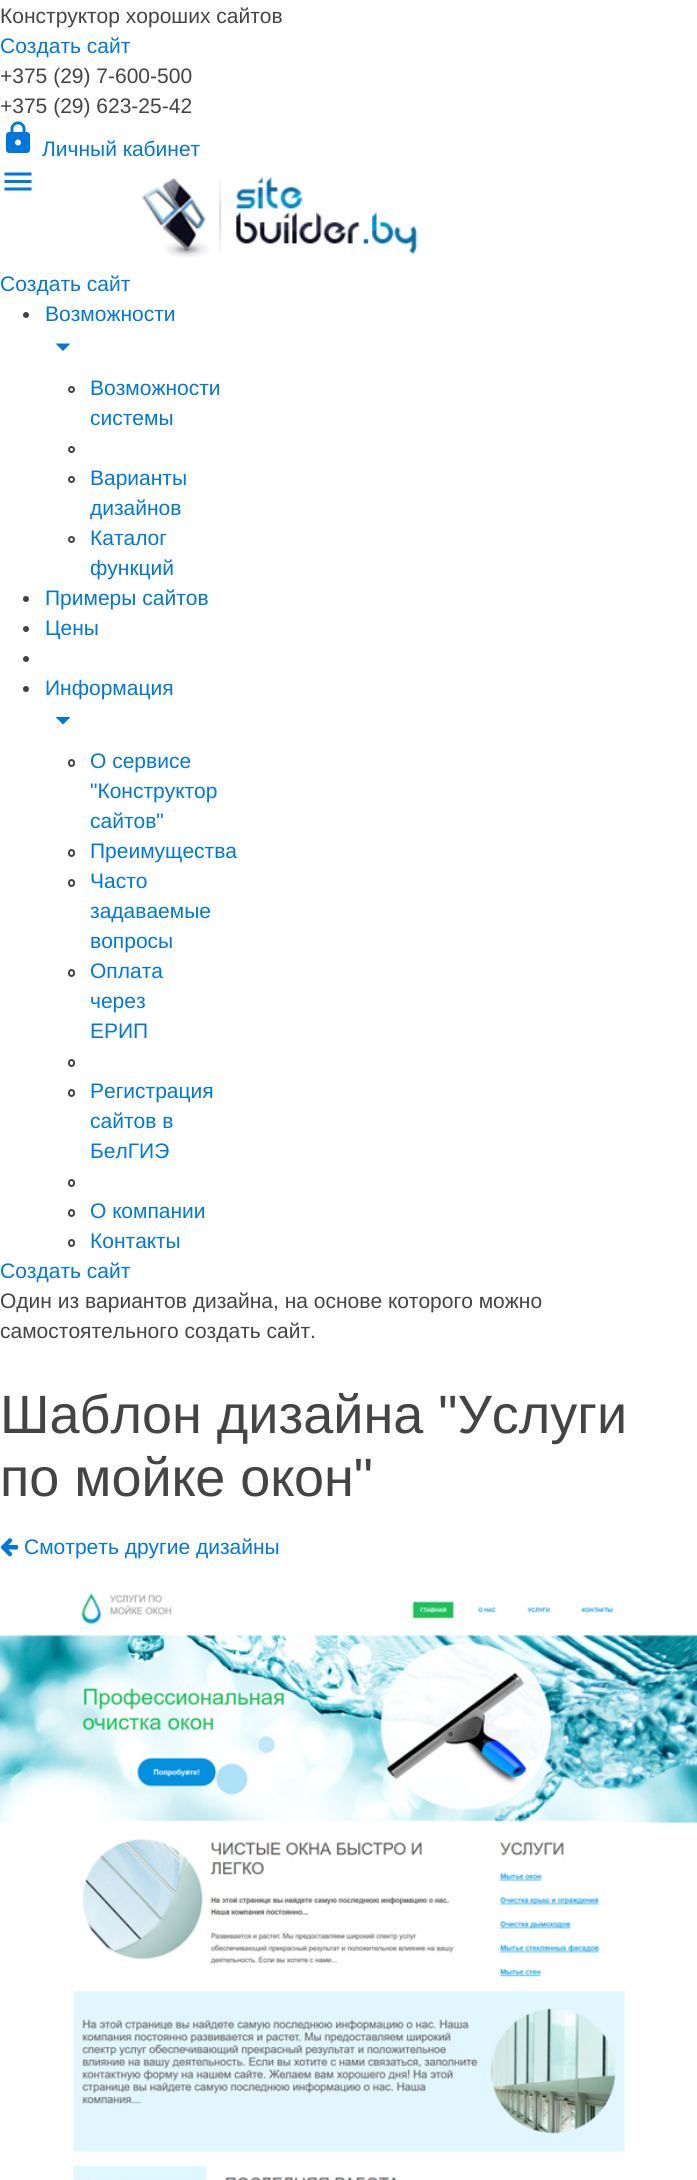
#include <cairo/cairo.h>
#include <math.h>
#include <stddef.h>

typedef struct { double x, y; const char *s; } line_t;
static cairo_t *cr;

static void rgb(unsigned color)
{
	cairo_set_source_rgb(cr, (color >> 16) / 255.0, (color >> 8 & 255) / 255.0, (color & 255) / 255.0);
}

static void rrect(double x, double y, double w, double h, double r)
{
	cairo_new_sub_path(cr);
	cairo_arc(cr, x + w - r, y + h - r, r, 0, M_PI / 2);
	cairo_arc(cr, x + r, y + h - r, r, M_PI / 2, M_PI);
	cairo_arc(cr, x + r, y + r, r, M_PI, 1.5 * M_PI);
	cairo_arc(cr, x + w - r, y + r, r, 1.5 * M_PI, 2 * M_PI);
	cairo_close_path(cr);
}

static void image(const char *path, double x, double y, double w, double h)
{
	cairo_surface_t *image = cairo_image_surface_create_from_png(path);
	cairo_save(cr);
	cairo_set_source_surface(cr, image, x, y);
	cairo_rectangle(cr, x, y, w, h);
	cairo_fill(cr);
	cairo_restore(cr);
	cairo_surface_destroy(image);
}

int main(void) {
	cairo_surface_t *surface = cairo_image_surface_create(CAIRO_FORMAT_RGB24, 697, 2180);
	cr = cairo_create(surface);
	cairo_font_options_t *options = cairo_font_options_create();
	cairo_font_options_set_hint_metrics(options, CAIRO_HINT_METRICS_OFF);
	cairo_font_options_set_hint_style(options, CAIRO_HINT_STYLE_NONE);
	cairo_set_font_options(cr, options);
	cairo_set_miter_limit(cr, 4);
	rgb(0xffffff);
	cairo_paint(cr);
	image("img/1.png", 5, 121, 26, 32);
	image("img/2.png", 4, 172, 28, 19);
	image("img/3.png", 142, 175, 276, 83);
	rgb(0x444444);
	cairo_arc(cr, 26, 315, 3, 0, 2 * M_PI);
	cairo_fill(cr);
	rgb(0x0077dd);
	cairo_new_path(cr);
	cairo_move_to(cr, 55.5, 343.5);
	cairo_line_to(cr, 70.5, 343.5);
	cairo_line_to(cr, 63, 351);
	cairo_close_path(cr);
	cairo_fill(cr);
	cairo_arc(cr, 71.5, 389.5, 2.5, 0, 2 * M_PI);
	rgb(0x444444);
	cairo_stroke(cr);
	cairo_arc(cr, 71.5, 449.5, 2.5, 0, 2 * M_PI);
	cairo_stroke(cr);
	cairo_arc(cr, 71.5, 479.5, 2.5, 0, 2 * M_PI);
	cairo_stroke(cr);
	cairo_arc(cr, 71.5, 539.5, 2.5, 0, 2 * M_PI);
	cairo_stroke(cr);
	cairo_arc(cr, 26, 599, 3, 0, 2 * M_PI);
	cairo_fill(cr);
	cairo_arc(cr, 26, 629, 3, 0, 2 * M_PI);
	cairo_fill(cr);
	cairo_arc(cr, 26, 659, 3, 0, 2 * M_PI);
	cairo_fill(cr);
	cairo_arc(cr, 26, 689, 3, 0, 2 * M_PI);
	cairo_fill(cr);
	rgb(0x0077dd);
	cairo_new_path(cr);
	cairo_move_to(cr, 55.5, 717);
	cairo_line_to(cr, 70.5, 717);
	cairo_line_to(cr, 63, 724.5);
	cairo_close_path(cr);
	cairo_fill(cr);
	rrect(69, 760, 5, 6, 2.5);
	rgb(0x444444);
	cairo_stroke(cr);
	rrect(69, 850, 5, 6, 2.5);
	cairo_stroke(cr);
	rrect(69, 880, 5, 6, 2.5);
	cairo_stroke(cr);
	rrect(69, 970, 5, 6, 2.5);
	cairo_stroke(cr);
	rrect(69, 1060, 5, 6, 2.5);
	cairo_stroke(cr);
	rrect(69, 1090, 5, 6, 2.5);
	cairo_stroke(cr);
	rrect(69, 1180, 5, 6, 2.5);
	cairo_stroke(cr);
	rrect(69, 1210, 5, 6, 2.5);
	cairo_stroke(cr);
	rrect(69, 1240, 5, 6, 2.5);
	cairo_stroke(cr);
	image("img/4.png", 0, 1538, 18, 19);
	image("img/5.png", 0, 1593, 697, 587);
	cairo_select_font_face(cr, "Liberation Sans", CAIRO_FONT_SLANT_NORMAL, CAIRO_FONT_WEIGHT_NORMAL);
	cairo_set_font_size(cr, 21);
	cairo_move_to(cr, 0, 23);
	cairo_show_text(cr, "Конструктор хороших сайтов");
	rgb(0x0077dd);
	cairo_move_to(cr, 0, 53);
	cairo_show_text(cr, "Создать сайт");
	rgb(0x444444);
	cairo_move_to(cr, 0, 83);
	cairo_show_text(cr, "+375 (29) 7-600-500");
	cairo_move_to(cr, 0, 113);
	cairo_show_text(cr, "+375 (29) 623-25-42");
	rgb(0x0077dd);
	{
		static const line_t items[] = {
			{42, 156, "Личный кабинет"},
			{0, 291, "Создать сайт"},
			{45, 321, "Возможности"},
			{90, 395, "Возможности"},
			{90, 425, "системы"},
			{90, 485, "Варианты"},
			{90, 515, "дизайнов"},
			{90, 545, "Каталог"},
			{90, 575, "функций"},
			{45, 605, "Примеры сайтов"},
			{45, 635, "Цены"},
			{45, 695, "Информация"},
			{90, 768, "О сервисе"},
			{90, 798, "\"Конструктор"},
			{90, 828, "сайтов\""},
			{90, 858, "Преимущества"},
			{90, 888, "Часто"},
			{90, 918, "задаваемые"},
			{90, 948, "вопросы"},
			{90, 978, "Оплата"},
			{90, 1008, "через"},
			{90, 1038, "ЕРИП"},
			{90, 1098, "Регистрация"},
			{90, 1128, "сайтов в"},
			{90, 1158, "БелГИЭ"},
			{90, 1218, "О компании"},
			{90, 1248, "Контакты"},
			{0, 1278, "Создать сайт"},
		};
		for (size_t i = 0; i < sizeof items / sizeof *items; i++) {
			cairo_move_to(cr, items[i].x, items[i].y);
			cairo_show_text(cr, items[i].s);
		}
	}
	rgb(0x444444);
	cairo_move_to(cr, 0, 1308);
	cairo_show_text(cr, "Один из вариантов дизайна, на основе которого можно");
	cairo_move_to(cr, 0, 1338);
	cairo_show_text(cr, "самостоятельного создать сайт.");
	cairo_set_font_size(cr, 54);
	cairo_move_to(cr, 0, 1433);
	cairo_show_text(cr, "Шаблон дизайна \"Услуги");
	cairo_move_to(cr, 0, 1496);
	cairo_show_text(cr, "по мойке окон\"");
	cairo_set_font_size(cr, 21);
	rgb(0x0077dd);
	cairo_move_to(cr, 24, 1554);
	cairo_show_text(cr, "Смотреть другие дизайны");
	cairo_surface_write_to_png(surface, "page.png");
	cairo_font_options_destroy(options);
	cairo_destroy(cr);
	cairo_surface_destroy(surface);
	return 0;
}
